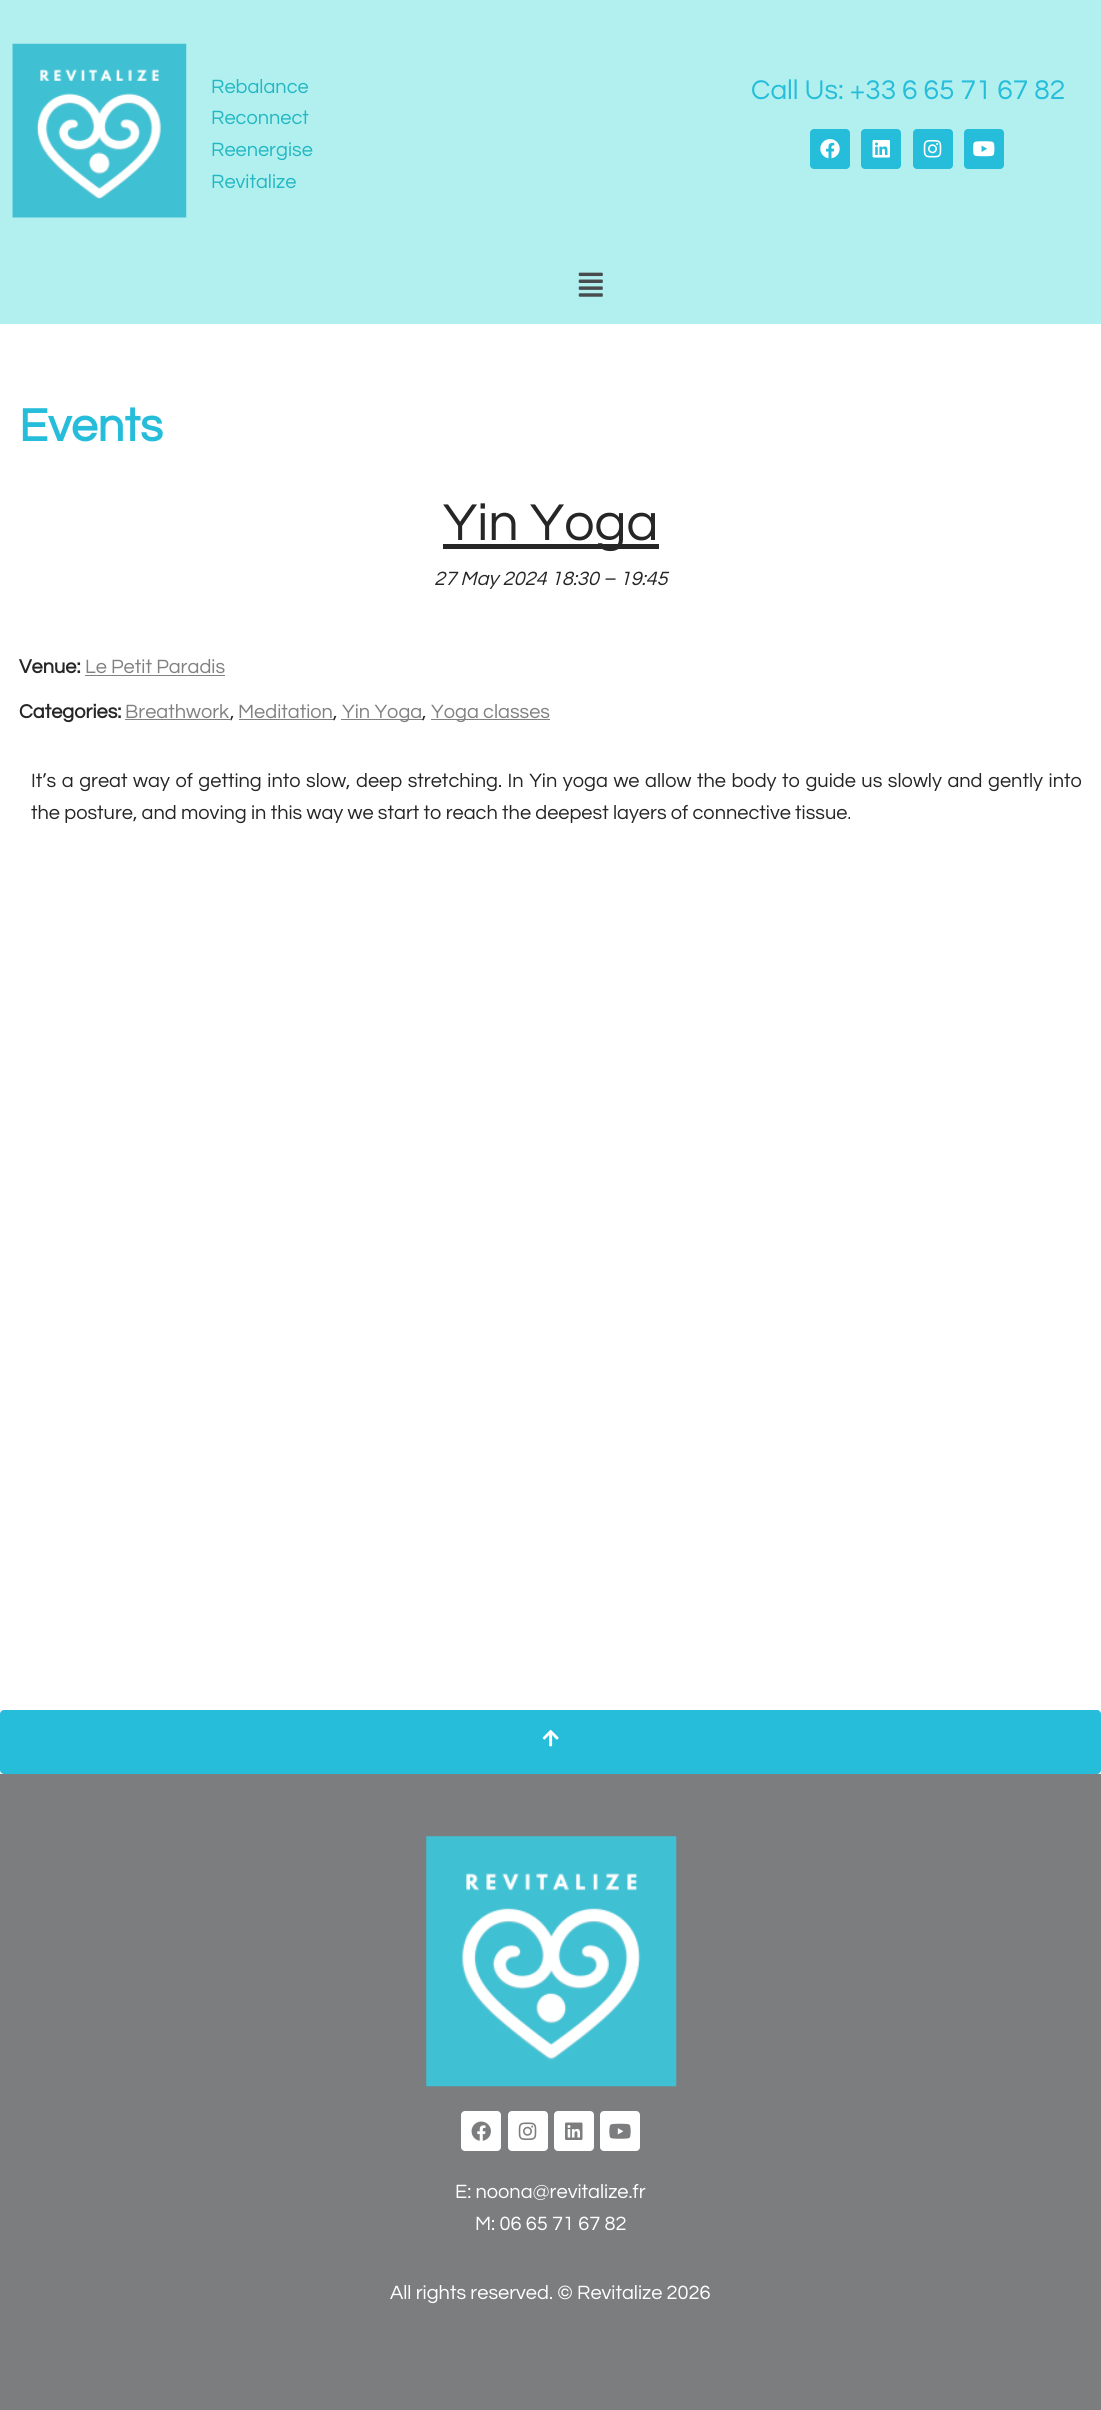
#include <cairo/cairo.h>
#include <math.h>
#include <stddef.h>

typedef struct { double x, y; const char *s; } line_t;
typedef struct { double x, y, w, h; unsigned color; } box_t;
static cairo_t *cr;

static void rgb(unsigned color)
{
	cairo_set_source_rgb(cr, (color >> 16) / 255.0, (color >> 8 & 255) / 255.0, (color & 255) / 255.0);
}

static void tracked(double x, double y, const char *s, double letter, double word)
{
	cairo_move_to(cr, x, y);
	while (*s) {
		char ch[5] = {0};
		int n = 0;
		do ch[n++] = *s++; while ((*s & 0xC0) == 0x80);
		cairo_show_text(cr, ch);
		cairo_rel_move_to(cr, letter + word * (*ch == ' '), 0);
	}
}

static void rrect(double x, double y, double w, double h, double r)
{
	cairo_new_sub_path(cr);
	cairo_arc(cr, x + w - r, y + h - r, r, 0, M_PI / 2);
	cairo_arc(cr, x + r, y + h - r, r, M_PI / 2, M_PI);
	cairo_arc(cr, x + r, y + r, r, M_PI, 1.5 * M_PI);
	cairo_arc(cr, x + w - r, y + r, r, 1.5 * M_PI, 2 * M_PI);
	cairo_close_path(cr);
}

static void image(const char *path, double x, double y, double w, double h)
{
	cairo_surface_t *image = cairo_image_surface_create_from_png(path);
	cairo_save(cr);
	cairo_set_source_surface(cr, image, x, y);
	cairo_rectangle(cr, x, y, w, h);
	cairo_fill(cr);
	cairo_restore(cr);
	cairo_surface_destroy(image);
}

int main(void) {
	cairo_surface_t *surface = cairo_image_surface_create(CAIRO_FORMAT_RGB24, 1101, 2410);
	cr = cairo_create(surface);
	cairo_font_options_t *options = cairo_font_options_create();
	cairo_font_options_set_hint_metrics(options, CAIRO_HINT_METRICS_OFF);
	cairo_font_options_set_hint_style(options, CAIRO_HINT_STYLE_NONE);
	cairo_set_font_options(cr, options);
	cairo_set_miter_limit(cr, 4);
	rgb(0xffffff);
	cairo_paint(cr);
	rgb(0xb2f0ef);
	cairo_rectangle(cr, 0, 0, 1101, 324);
	cairo_fill(cr);
	image("img/1.png", 12, 43, 175, 175);
	rgb(0x26bdda);
	rrect(810, 129, 40, 40, 4);
	cairo_fill(cr);
	image("img/2.png", 820, 139, 20, 20);
	rrect(861, 129, 40, 40, 4);
	cairo_fill(cr);
	image("img/3.png", 872, 140, 18, 18);
	rrect(913, 129, 40, 40, 4);
	cairo_fill(cr);
	image("img/4.png", 923, 139, 19, 19);
	rrect(964, 129, 40, 40, 4);
	cairo_fill(cr);
	image("img/5.png", 973, 141, 22, 16);
	image("img/6.png", 578, 272, 25, 25);
	{
		static const box_t items[] = {
			{443, 544, 216, 5, 0x272626},
			{85, 675, 140, 1, 0x818181},
			{125, 719, 105, 1, 0x818181},
			{239, 719, 95, 1, 0x818181},
			{341, 719, 82, 1, 0x818181},
			{431, 719, 119, 1, 0x818181},
		};
		for (size_t i = 0; i < sizeof items / sizeof *items; i++) {
			rgb(items[i].color);
			cairo_rectangle(cr, items[i].x, items[i].y, items[i].w, items[i].h);
			cairo_fill(cr);
		}
	}
	rgb(0x26bdda);
	rrect(0, 1710, 1101, 64, 4);
	cairo_fill(cr);
	image("img/7.png", 542, 1730, 17, 17);
	rgb(0x7c7d7e);
	cairo_rectangle(cr, 0, 1774, 1101, 636);
	cairo_fill(cr);
	image("img/8.png", 426, 1836, 251, 251);
	rgb(0xffffff);
	rrect(461, 2111, 40, 40, 4);
	cairo_fill(cr);
	image("img/9.png", 471, 2121, 20, 20);
	rrect(508, 2111, 40, 40, 4);
	cairo_fill(cr);
	image("img/10.png", 518, 2122, 19, 18);
	rrect(554, 2111, 40, 40, 4);
	cairo_fill(cr);
	image("img/11.png", 565, 2122, 18, 18);
	rrect(600, 2111, 40, 40, 4);
	cairo_fill(cr);
	image("img/12.png", 609, 2123, 22, 16);
	cairo_select_font_face(cr, "Questrial", CAIRO_FONT_SLANT_NORMAL, CAIRO_FONT_WEIGHT_NORMAL);
	cairo_set_font_size(cr, 20);
	rgb(0x23b7c2);
	{
		static const line_t items[] = {
			{211, 93, "Rebalance"},
			{211, 124, "Reconnect"},
			{211, 156, "Reenergise"},
			{211, 188, "Revitalize"},
		};
		for (size_t i = 0; i < sizeof items / sizeof *items; i++) {
			cairo_move_to(cr, items[i].x, items[i].y);
			cairo_show_text(cr, items[i].s);
		}
	}
	cairo_set_font_size(cr, 28.1);
	rgb(0x26bdda);
	cairo_move_to(cr, 751, 99);
	cairo_show_text(cr, "Call Us: +33 6 65 71 67 82");
	cairo_select_font_face(cr, "Questrial", CAIRO_FONT_SLANT_NORMAL, CAIRO_FONT_WEIGHT_BOLD);
	cairo_set_font_size(cr, 47.5);
	cairo_move_to(cr, 19, 441);
	cairo_show_text(cr, "Events");
	cairo_select_font_face(cr, "Questrial", CAIRO_FONT_SLANT_NORMAL, CAIRO_FONT_WEIGHT_NORMAL);
	cairo_set_font_size(cr, 53.75);
	rgb(0x272626);
	cairo_move_to(cr, 443, 540);
	cairo_show_text(cr, "Yin Yoga");
	cairo_select_font_face(cr, "Questrial", CAIRO_FONT_SLANT_ITALIC, CAIRO_FONT_WEIGHT_NORMAL);
	cairo_set_font_size(cr, 20);
	cairo_move_to(cr, 434, 585);
	cairo_show_text(cr, "27 May 2024 18:30 – 19:45");
	cairo_select_font_face(cr, "Questrial", CAIRO_FONT_SLANT_NORMAL, CAIRO_FONT_WEIGHT_BOLD);
	cairo_move_to(cr, 19, 673);
	cairo_show_text(cr, "Venue:");
	cairo_select_font_face(cr, "Questrial", CAIRO_FONT_SLANT_NORMAL, CAIRO_FONT_WEIGHT_NORMAL);
	rgb(0x818181);
	cairo_move_to(cr, 85, 673);
	cairo_show_text(cr, "Le Petit Paradis");
	cairo_select_font_face(cr, "Questrial", CAIRO_FONT_SLANT_NORMAL, CAIRO_FONT_WEIGHT_BOLD);
	rgb(0x272626);
	cairo_move_to(cr, 19, 718);
	cairo_show_text(cr, "Categories:");
	cairo_select_font_face(cr, "Questrial", CAIRO_FONT_SLANT_NORMAL, CAIRO_FONT_WEIGHT_NORMAL);
	rgb(0x818181);
	cairo_move_to(cr, 125, 718);
	cairo_show_text(cr, "Breathwork");
	rgb(0x272626);
	cairo_move_to(cr, 230, 718);
	cairo_show_text(cr, ",");
	rgb(0x818181);
	cairo_move_to(cr, 238, 718);
	cairo_show_text(cr, "Meditation");
	rgb(0x272626);
	cairo_move_to(cr, 333, 718);
	cairo_show_text(cr, ",");
	rgb(0x818181);
	cairo_move_to(cr, 342, 718);
	cairo_show_text(cr, "Yin Yoga");
	rgb(0x272626);
	cairo_move_to(cr, 422, 718);
	cairo_show_text(cr, ",");
	rgb(0x818181);
	cairo_move_to(cr, 431, 718);
	cairo_show_text(cr, "Yoga classes");
	rgb(0x272626);
	tracked(31, 787, "It’s a great way of getting into slow, deep stretching. In Yin yoga we allow the body to guide us slowly and gently into", 0, 1.3);
	cairo_move_to(cr, 31, 819);
	cairo_show_text(cr, "the posture, and moving in this way we start to reach the deepest layers of connective tissue.");
	rgb(0xffffff);
	{
		static const line_t items[] = {
			{455, 2198, "E: noona@revitalize.fr"},
			{475, 2230, "M: 06 65 71 67 82"},
			{390, 2299, "All rights reserved. © Revitalize 2026"},
		};
		for (size_t i = 0; i < sizeof items / sizeof *items; i++) {
			cairo_move_to(cr, items[i].x, items[i].y);
			cairo_show_text(cr, items[i].s);
		}
	}
	cairo_surface_write_to_png(surface, "page.png");
	cairo_font_options_destroy(options);
	cairo_destroy(cr);
	cairo_surface_destroy(surface);
	return 0;
}
